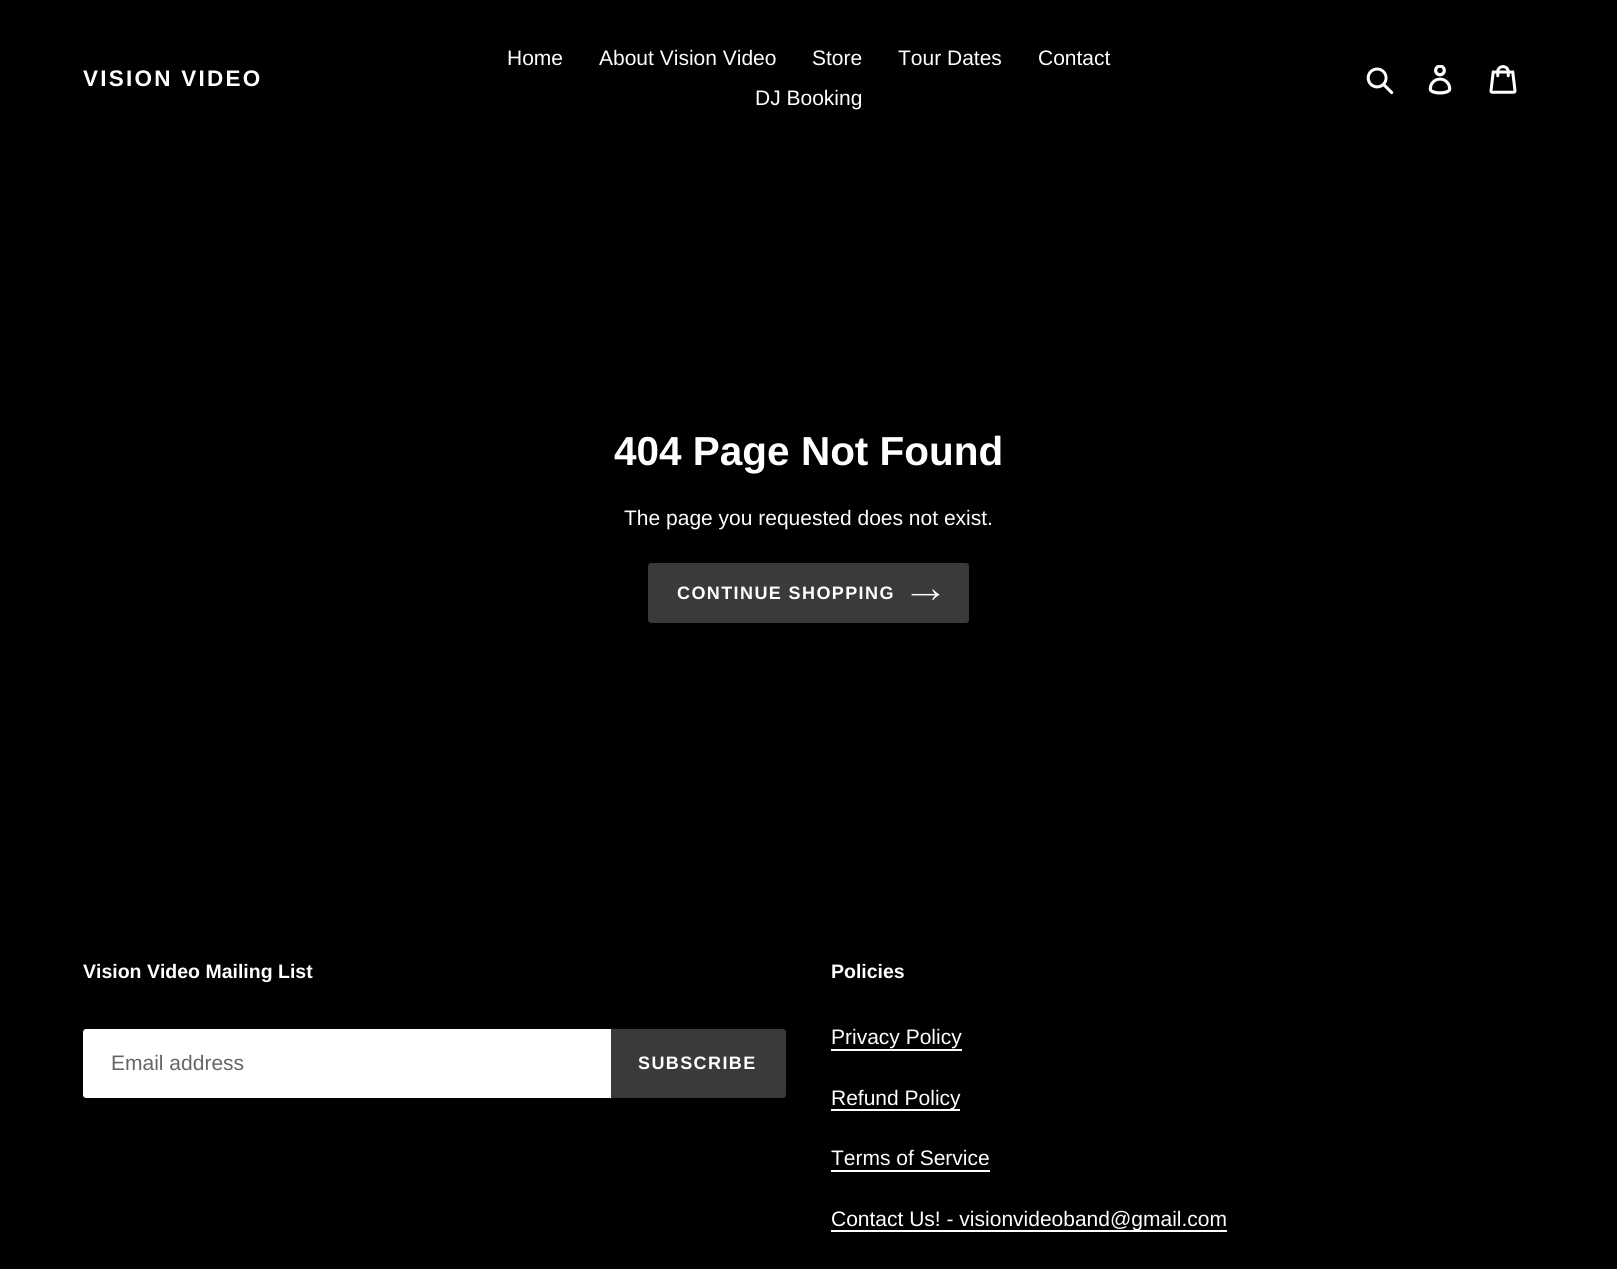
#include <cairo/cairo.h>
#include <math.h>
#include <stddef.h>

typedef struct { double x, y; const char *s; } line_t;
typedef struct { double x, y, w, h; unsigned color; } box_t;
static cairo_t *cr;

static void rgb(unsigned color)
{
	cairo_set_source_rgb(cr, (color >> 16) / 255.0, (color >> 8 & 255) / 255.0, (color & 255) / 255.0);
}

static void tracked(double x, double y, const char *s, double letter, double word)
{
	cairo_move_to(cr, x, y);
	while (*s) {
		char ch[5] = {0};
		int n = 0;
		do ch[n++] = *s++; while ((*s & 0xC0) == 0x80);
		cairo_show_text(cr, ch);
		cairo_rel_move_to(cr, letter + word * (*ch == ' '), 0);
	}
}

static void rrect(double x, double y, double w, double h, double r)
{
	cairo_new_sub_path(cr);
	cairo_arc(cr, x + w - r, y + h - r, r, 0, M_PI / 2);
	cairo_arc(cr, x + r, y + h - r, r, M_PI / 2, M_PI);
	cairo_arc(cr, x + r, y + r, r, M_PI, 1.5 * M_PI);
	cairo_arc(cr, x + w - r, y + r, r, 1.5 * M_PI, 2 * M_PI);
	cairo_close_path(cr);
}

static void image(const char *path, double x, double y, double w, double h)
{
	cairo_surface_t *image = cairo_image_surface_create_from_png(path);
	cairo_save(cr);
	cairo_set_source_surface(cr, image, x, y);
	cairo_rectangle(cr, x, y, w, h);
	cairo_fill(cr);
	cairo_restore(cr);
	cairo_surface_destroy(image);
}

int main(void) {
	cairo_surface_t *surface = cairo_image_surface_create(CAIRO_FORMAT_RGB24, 1617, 1269);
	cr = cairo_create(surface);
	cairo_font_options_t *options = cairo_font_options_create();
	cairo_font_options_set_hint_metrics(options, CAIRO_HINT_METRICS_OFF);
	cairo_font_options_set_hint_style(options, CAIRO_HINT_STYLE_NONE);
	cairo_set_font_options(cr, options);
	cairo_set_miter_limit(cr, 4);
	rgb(0x000000);
	cairo_paint(cr);
	image("img/1.png", 1366, 67, 28, 28);
	image("img/2.png", 1428, 65, 24, 30);
	image("img/3.png", 1489, 65, 28, 29);
	rgb(0x3a3a3a);
	rrect(648, 563, 321, 60, 3);
	cairo_fill(cr);
	image("img/4.png", 911, 589, 29, 11);
	rgb(0xffffff);
	cairo_new_path(cr);
	cairo_move_to(cr, 86, 1030);
	cairo_line_to(cr, 610, 1030);
	cairo_line_to(cr, 610, 1097);
	cairo_line_to(cr, 86, 1097);
	cairo_curve_to(cr, 85, 1097, 84, 1096, 84, 1095);
	cairo_line_to(cr, 84, 1032);
	cairo_curve_to(cr, 84, 1031, 85, 1030, 86, 1030);
	cairo_close_path(cr);
	cairo_fill_preserve(cr);
	cairo_stroke(cr);
	rgb(0x3a3a3a);
	cairo_new_path(cr);
	cairo_move_to(cr, 611, 1029);
	cairo_line_to(cr, 783, 1029);
	cairo_curve_to(cr, 784.5, 1029, 786, 1030.5, 786, 1032);
	cairo_line_to(cr, 786, 1095);
	cairo_curve_to(cr, 786, 1096.5, 784.5, 1098, 783, 1098);
	cairo_line_to(cr, 611, 1098);
	cairo_close_path(cr);
	cairo_fill(cr);
	{
		static const box_t items[] = {
			{831, 1049, 131, 2, 0xffffff},
			{831, 1109, 129, 2, 0xffffff},
			{831, 1170, 159, 2, 0xffffff},
			{831, 1230, 396, 2, 0xffffff},
		};
		for (size_t i = 0; i < sizeof items / sizeof *items; i++) {
			rgb(items[i].color);
			cairo_rectangle(cr, items[i].x, items[i].y, items[i].w, items[i].h);
			cairo_fill(cr);
		}
	}
	cairo_select_font_face(cr, "Liberation Sans", CAIRO_FONT_SLANT_NORMAL, CAIRO_FONT_WEIGHT_BOLD);
	cairo_set_font_size(cr, 22.5);
	tracked(83, 86, "VISION VIDEO", 2.25, 0);
	cairo_select_font_face(cr, "Liberation Sans", CAIRO_FONT_SLANT_NORMAL, CAIRO_FONT_WEIGHT_NORMAL);
	cairo_set_font_size(cr, 21);
	{
		static const line_t items[] = {
			{507, 65, "Home"},
			{599, 65, "About Vision Video"},
			{812, 65, "Store"},
			{898, 65, "Tour Dates"},
			{1038, 65, "Contact"},
			{755, 105, "DJ Booking"},
		};
		for (size_t i = 0; i < sizeof items / sizeof *items; i++) {
			cairo_move_to(cr, items[i].x, items[i].y);
			cairo_show_text(cr, items[i].s);
		}
	}
	cairo_select_font_face(cr, "Liberation Sans", CAIRO_FONT_SLANT_NORMAL, CAIRO_FONT_WEIGHT_BOLD);
	cairo_set_font_size(cr, 40.5);
	cairo_move_to(cr, 614, 465);
	cairo_show_text(cr, "404 Page Not Found");
	cairo_select_font_face(cr, "Liberation Sans", CAIRO_FONT_SLANT_NORMAL, CAIRO_FONT_WEIGHT_NORMAL);
	cairo_set_font_size(cr, 21);
	cairo_move_to(cr, 624, 525);
	cairo_show_text(cr, "The page you requested does not exist.");
	cairo_select_font_face(cr, "Liberation Sans", CAIRO_FONT_SLANT_NORMAL, CAIRO_FONT_WEIGHT_BOLD);
	cairo_set_font_size(cr, 18);
	tracked(677, 599, "CONTINUE SHOPPING", 1.4, 0);
	cairo_set_font_size(cr, 19.5);
	cairo_move_to(cr, 83, 978);
	cairo_show_text(cr, "Vision Video Mailing List");
	cairo_select_font_face(cr, "Liberation Sans", CAIRO_FONT_SLANT_NORMAL, CAIRO_FONT_WEIGHT_NORMAL);
	cairo_set_font_size(cr, 21);
	rgb(0x666666);
	cairo_move_to(cr, 111, 1070);
	cairo_show_text(cr, "Email address");
	cairo_select_font_face(cr, "Liberation Sans", CAIRO_FONT_SLANT_NORMAL, CAIRO_FONT_WEIGHT_BOLD);
	cairo_set_font_size(cr, 18);
	rgb(0xffffff);
	tracked(638, 1069, "SUBSCRIBE", 1.4, 0);
	cairo_set_font_size(cr, 19.5);
	cairo_move_to(cr, 831, 978);
	cairo_show_text(cr, "Policies");
	cairo_select_font_face(cr, "Liberation Sans", CAIRO_FONT_SLANT_NORMAL, CAIRO_FONT_WEIGHT_NORMAL);
	cairo_set_font_size(cr, 21);
	{
		static const line_t items[] = {
			{831, 1044, "Privacy Policy"},
			{831, 1105, "Refund Policy"},
			{831, 1165, "Terms of Service"},
			{831, 1226, "Contact Us! - visionvideoband@gmail.com"},
		};
		for (size_t i = 0; i < sizeof items / sizeof *items; i++) {
			cairo_move_to(cr, items[i].x, items[i].y);
			cairo_show_text(cr, items[i].s);
		}
	}
	cairo_surface_write_to_png(surface, "page.png");
	cairo_font_options_destroy(options);
	cairo_destroy(cr);
	cairo_surface_destroy(surface);
	return 0;
}
